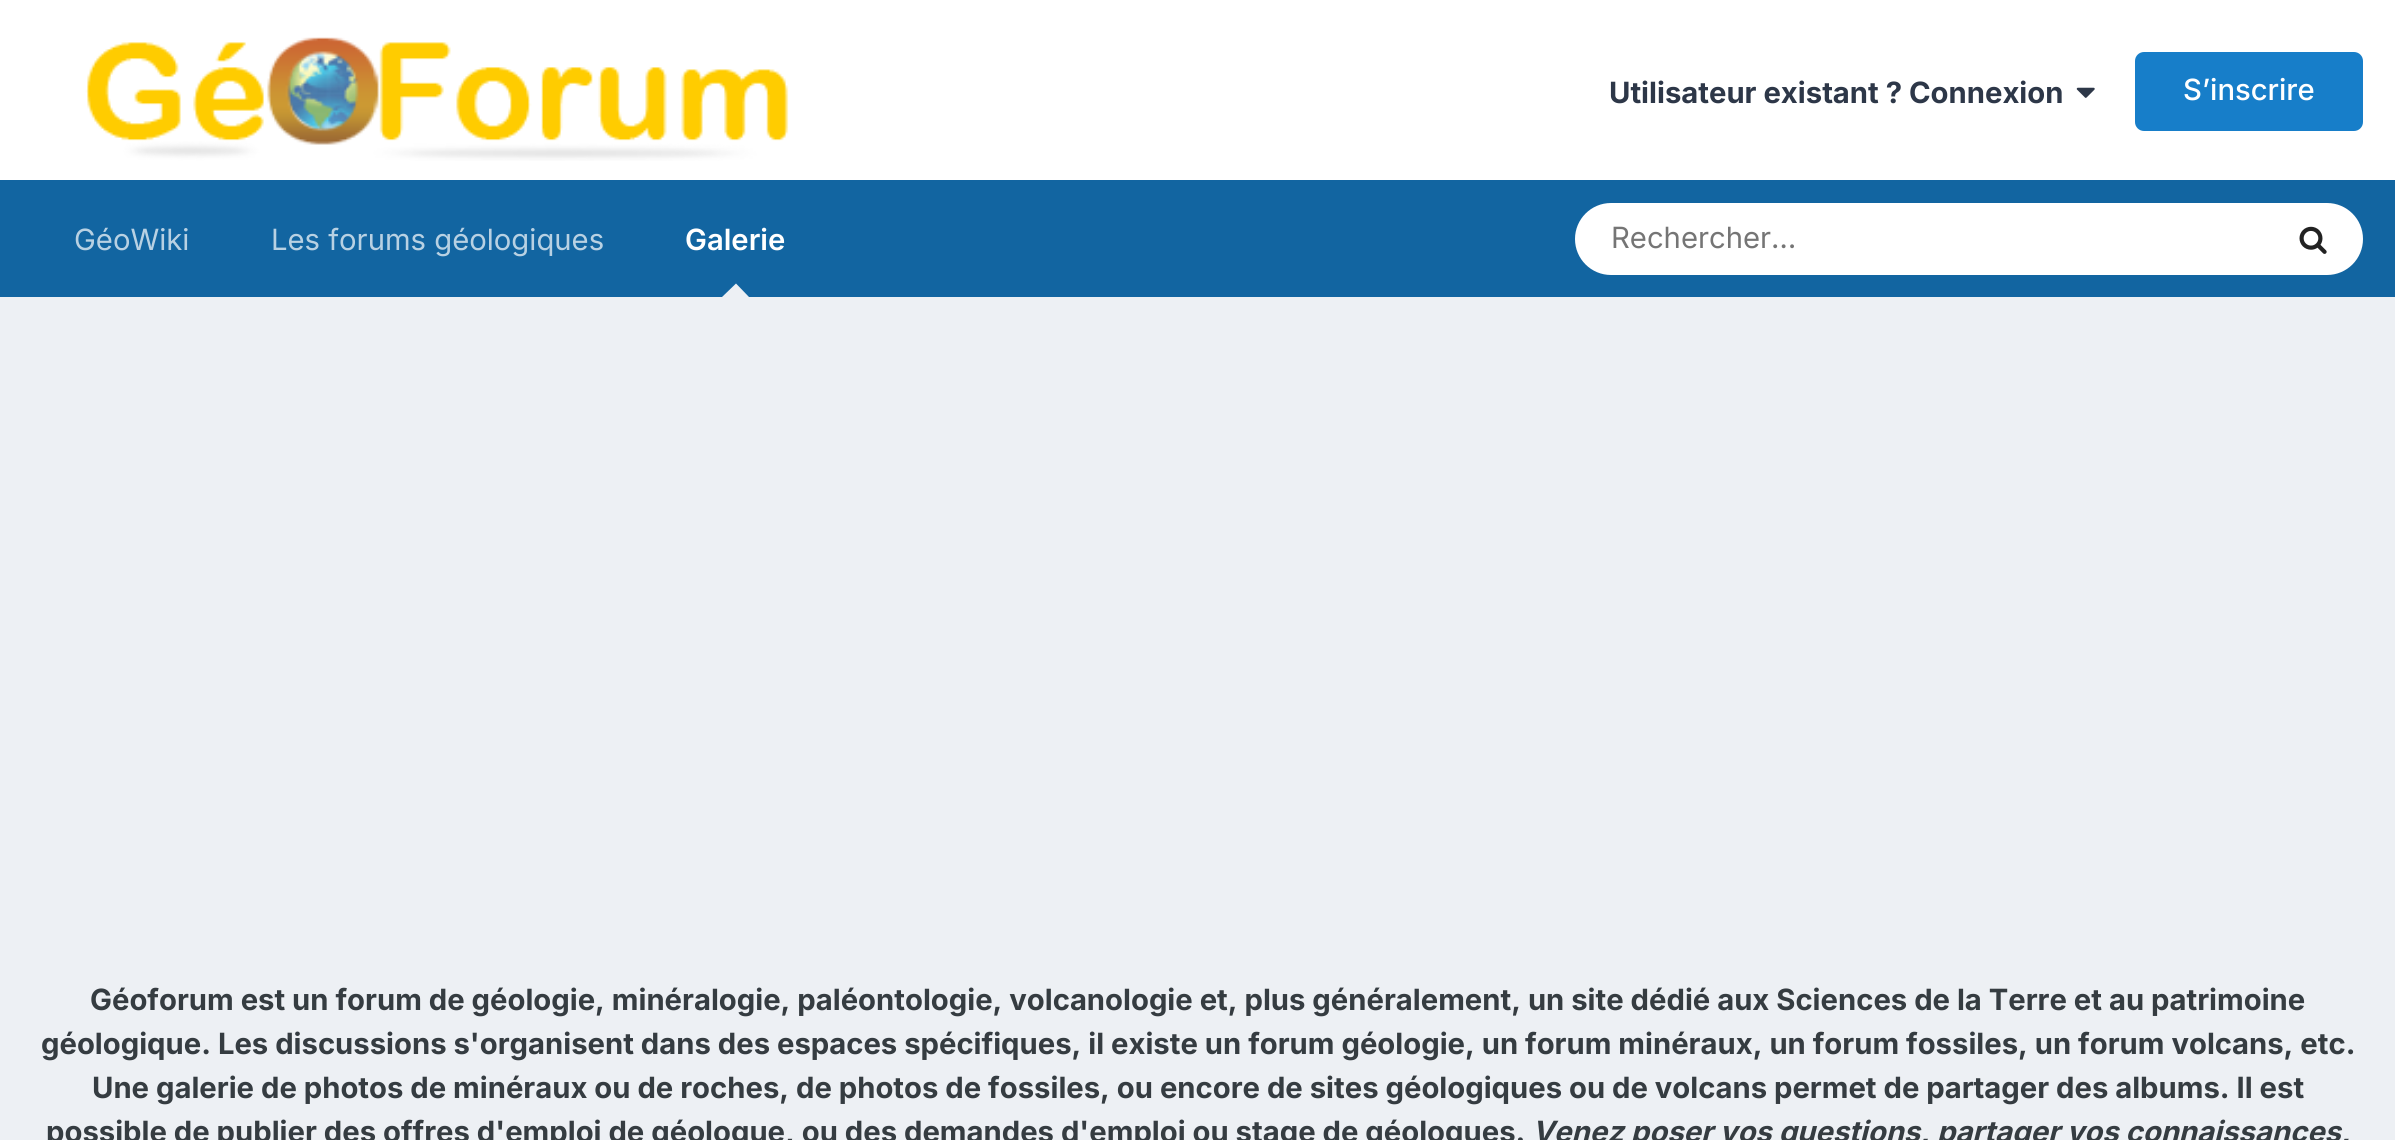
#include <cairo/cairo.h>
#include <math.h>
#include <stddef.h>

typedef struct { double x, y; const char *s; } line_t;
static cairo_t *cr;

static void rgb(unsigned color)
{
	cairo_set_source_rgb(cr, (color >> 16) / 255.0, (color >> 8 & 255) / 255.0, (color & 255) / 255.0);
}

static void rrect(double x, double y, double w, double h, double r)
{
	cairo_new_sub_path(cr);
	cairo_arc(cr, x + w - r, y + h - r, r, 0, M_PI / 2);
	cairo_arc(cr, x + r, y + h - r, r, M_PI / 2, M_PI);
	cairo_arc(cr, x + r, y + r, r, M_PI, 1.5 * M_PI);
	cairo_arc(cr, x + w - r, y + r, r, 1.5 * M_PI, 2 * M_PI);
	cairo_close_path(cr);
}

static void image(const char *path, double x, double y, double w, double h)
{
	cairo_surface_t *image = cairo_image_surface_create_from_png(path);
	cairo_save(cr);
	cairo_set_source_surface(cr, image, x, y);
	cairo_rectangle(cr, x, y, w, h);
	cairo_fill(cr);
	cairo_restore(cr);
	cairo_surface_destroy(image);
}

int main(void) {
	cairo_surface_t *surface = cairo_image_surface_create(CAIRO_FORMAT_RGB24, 2395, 1140);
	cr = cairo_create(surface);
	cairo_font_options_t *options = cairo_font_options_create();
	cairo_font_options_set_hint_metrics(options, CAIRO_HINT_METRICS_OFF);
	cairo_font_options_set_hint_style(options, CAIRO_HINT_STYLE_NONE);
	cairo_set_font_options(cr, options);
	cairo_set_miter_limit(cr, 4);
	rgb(0xedf0f4);
	cairo_paint(cr);
	rgb(0xffffff);
	cairo_rectangle(cr, 0, 0, 2395, 180);
	cairo_fill(cr);
	image("img/1.png", 85, 37, 704, 124);
	image("img/2.png", 2076, 87, 19, 11);
	rgb(0x177ec9);
	rrect(2135, 52, 228, 79, 9);
	cairo_fill(cr);
	rgb(0x1265a1);
	cairo_rectangle(cr, 0, 180, 2395, 117);
	cairo_fill(cr);
	rgb(0xedf0f4);
	cairo_new_path(cr);
	cairo_move_to(cr, 749, 297);
	cairo_line_to(cr, 722, 297);
	cairo_line_to(cr, 736, 283.5);
	cairo_close_path(cr);
	cairo_fill(cr);
	rgb(0xffffff);
	rrect(1575, 203, 788, 72, 36);
	cairo_fill(cr);
	image("img/3.png", 2299, 226, 28, 28);
	cairo_select_font_face(cr, "Inter", CAIRO_FONT_SLANT_NORMAL, CAIRO_FONT_WEIGHT_BOLD);
	cairo_set_font_size(cr, 29.25);
	rgb(0x2d3748);
	cairo_move_to(cr, 1609, 103);
	cairo_show_text(cr, "Utilisateur existant ? Connexion");
	cairo_select_font_face(cr, "Inter Medium", CAIRO_FONT_SLANT_NORMAL, CAIRO_FONT_WEIGHT_NORMAL);
	rgb(0xffffff);
	cairo_move_to(cr, 2183, 100);
	cairo_show_text(cr, "S’inscrire");
	cairo_select_font_face(cr, "Inter", CAIRO_FONT_SLANT_NORMAL, CAIRO_FONT_WEIGHT_NORMAL);
	rgb(0xb8d1e3);
	cairo_move_to(cr, 74, 250);
	cairo_show_text(cr, "GéoWiki");
	cairo_move_to(cr, 271, 250);
	cairo_show_text(cr, "Les forums géologiques");
	cairo_select_font_face(cr, "Inter SemiBold", CAIRO_FONT_SLANT_NORMAL, CAIRO_FONT_WEIGHT_NORMAL);
	rgb(0xffffff);
	cairo_move_to(cr, 685, 250);
	cairo_show_text(cr, "Galerie");
	cairo_select_font_face(cr, "Inter", CAIRO_FONT_SLANT_NORMAL, CAIRO_FONT_WEIGHT_NORMAL);
	rgb(0x757575);
	cairo_move_to(cr, 1611, 248);
	cairo_show_text(cr, "Rechercher…");
	cairo_select_font_face(cr, "Inter", CAIRO_FONT_SLANT_NORMAL, CAIRO_FONT_WEIGHT_BOLD);
	rgb(0x353c41);
	{
		static const line_t items[] = {
			{90, 1010, "Géoforum est un forum de géologie, minéralogie, paléontologie, volcanologie et, plus généralement, un site dédié aux Sciences de la Terre et au patrimoine"},
			{41, 1054, "géologique. Les discussions s'organisent dans des espaces spécifiques, il existe un forum géologie, un forum minéraux, un forum fossiles, un forum volcans, etc."},
			{92, 1098, "Une galerie de photos de minéraux ou de roches, de photos de fossiles, ou encore de sites géologiques ou de volcans permet de partager des albums. Il est"},
			{46, 1142, "possible de publier des offres d'emploi de géologue, ou des demandes d'emploi ou stage de géologues."},
		};
		for (size_t i = 0; i < sizeof items / sizeof *items; i++) {
			cairo_move_to(cr, items[i].x, items[i].y);
			cairo_show_text(cr, items[i].s);
		}
	}
	cairo_select_font_face(cr, "Inter", CAIRO_FONT_SLANT_ITALIC, CAIRO_FONT_WEIGHT_BOLD);
	cairo_move_to(cr, 1532, 1142);
	cairo_show_text(cr, "Venez poser vos questions, partager vos connaissances,");
	cairo_surface_write_to_png(surface, "page.png");
	cairo_font_options_destroy(options);
	cairo_destroy(cr);
	cairo_surface_destroy(surface);
	return 0;
}
